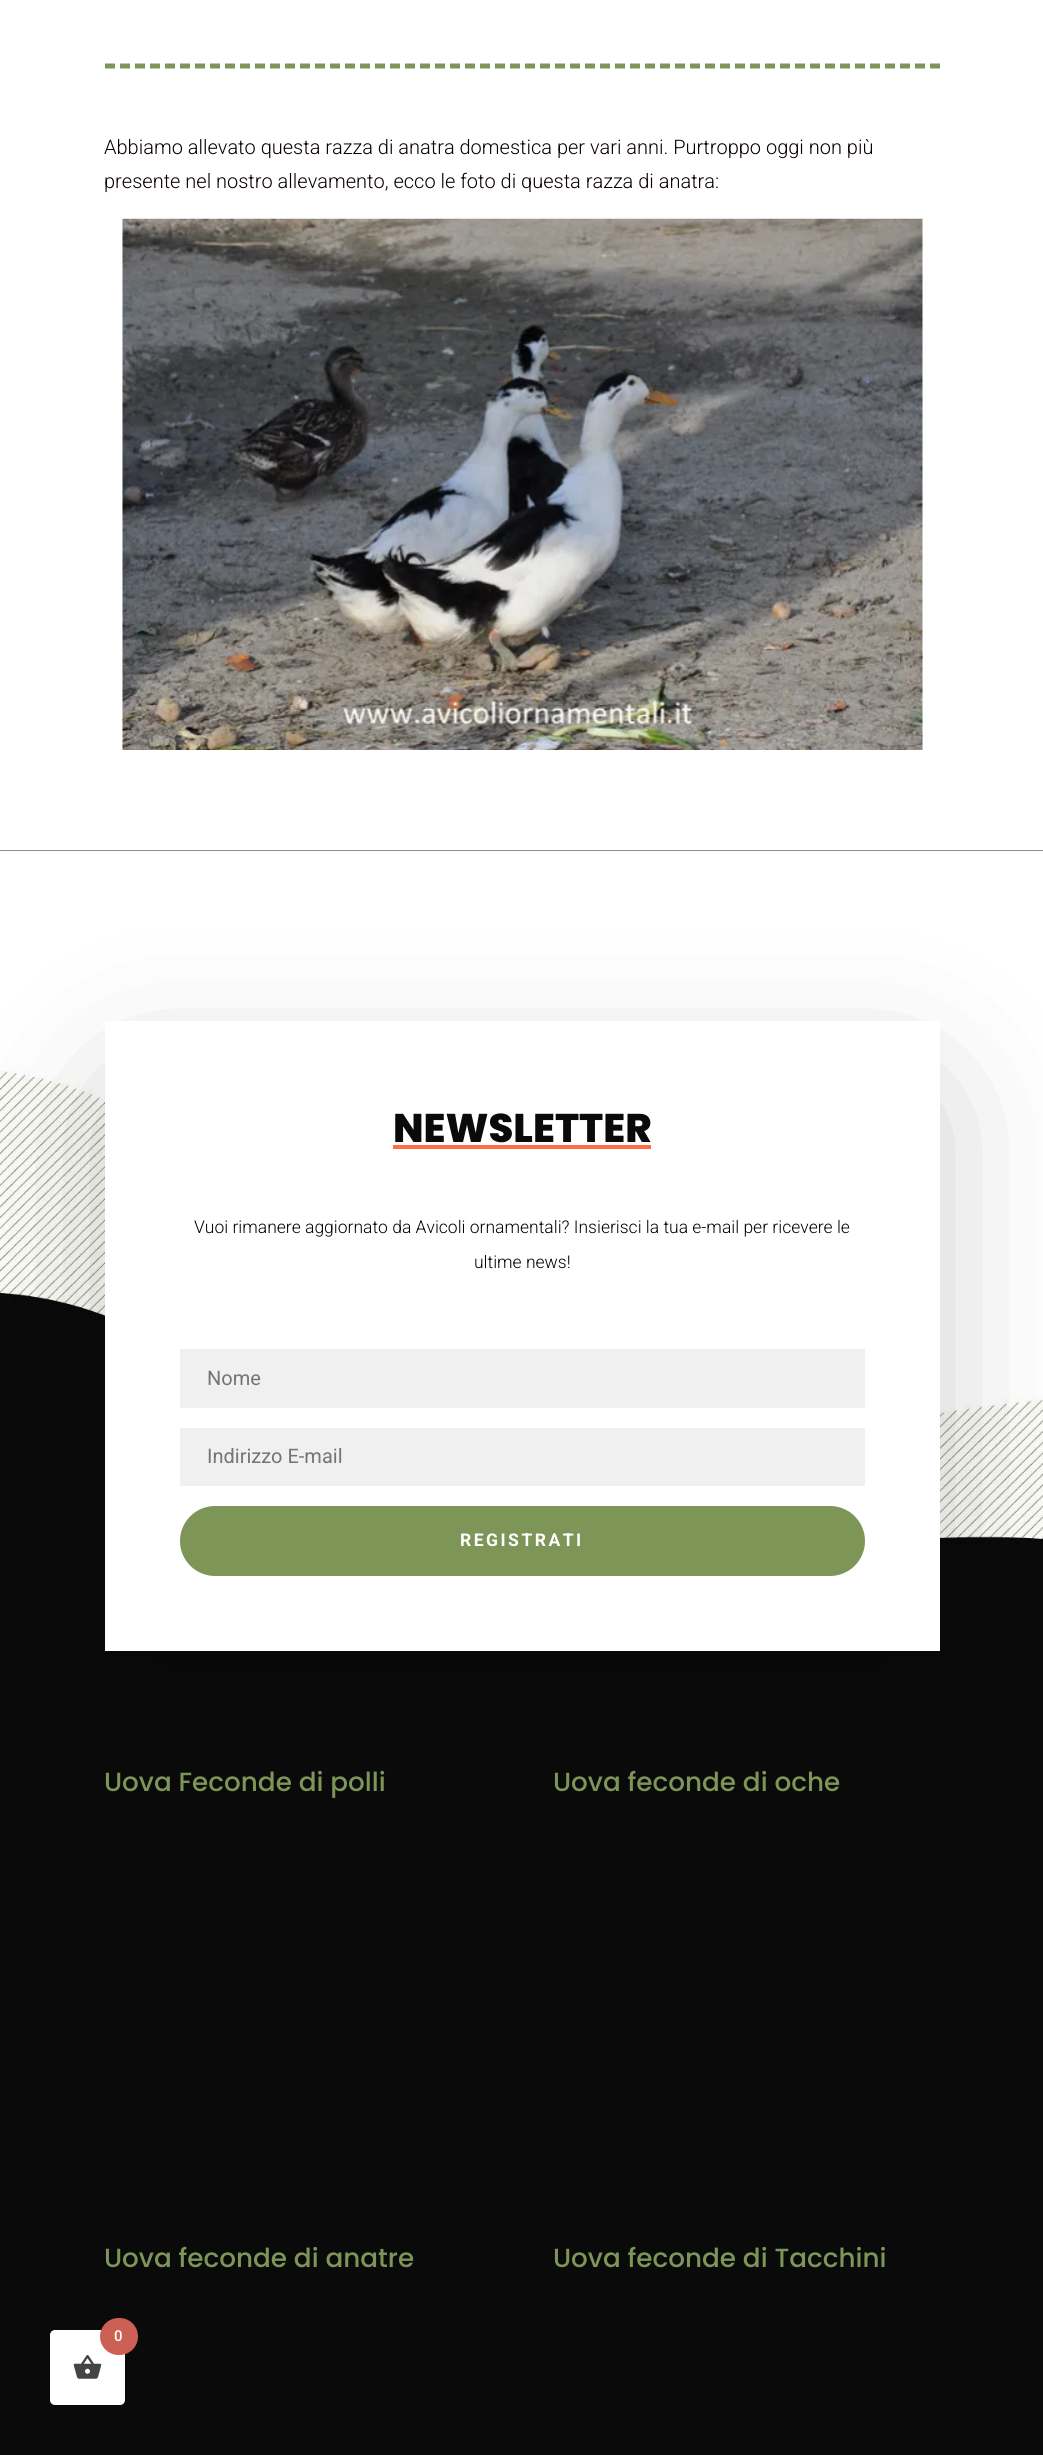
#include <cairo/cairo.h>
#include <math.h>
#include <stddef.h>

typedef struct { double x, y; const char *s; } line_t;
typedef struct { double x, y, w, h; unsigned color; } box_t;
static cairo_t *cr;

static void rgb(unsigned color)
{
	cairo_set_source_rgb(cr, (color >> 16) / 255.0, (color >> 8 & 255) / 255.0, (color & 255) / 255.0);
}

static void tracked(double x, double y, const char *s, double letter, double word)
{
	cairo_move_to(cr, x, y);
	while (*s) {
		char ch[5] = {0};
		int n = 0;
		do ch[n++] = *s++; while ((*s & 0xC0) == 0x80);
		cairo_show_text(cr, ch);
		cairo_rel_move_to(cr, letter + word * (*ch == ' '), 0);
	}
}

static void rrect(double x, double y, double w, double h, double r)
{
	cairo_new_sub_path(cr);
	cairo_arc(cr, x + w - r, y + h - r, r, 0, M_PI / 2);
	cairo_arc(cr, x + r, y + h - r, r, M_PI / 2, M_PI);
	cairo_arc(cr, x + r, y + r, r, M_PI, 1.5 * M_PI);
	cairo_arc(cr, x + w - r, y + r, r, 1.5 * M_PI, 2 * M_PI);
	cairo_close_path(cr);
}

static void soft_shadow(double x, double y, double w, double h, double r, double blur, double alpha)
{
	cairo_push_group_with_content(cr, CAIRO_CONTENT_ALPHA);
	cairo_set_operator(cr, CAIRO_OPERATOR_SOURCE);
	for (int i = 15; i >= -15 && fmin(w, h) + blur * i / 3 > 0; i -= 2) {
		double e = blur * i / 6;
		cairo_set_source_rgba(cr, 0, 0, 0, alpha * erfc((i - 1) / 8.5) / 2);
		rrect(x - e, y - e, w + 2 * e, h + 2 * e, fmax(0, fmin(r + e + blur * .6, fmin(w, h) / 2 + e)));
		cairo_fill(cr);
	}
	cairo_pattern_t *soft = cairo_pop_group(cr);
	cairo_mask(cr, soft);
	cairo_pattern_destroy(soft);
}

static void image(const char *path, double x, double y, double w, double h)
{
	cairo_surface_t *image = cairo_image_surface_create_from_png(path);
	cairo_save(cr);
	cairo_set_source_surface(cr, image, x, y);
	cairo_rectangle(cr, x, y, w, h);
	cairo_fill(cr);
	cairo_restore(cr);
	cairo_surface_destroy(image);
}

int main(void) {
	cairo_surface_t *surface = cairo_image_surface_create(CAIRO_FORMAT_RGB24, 1043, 2455);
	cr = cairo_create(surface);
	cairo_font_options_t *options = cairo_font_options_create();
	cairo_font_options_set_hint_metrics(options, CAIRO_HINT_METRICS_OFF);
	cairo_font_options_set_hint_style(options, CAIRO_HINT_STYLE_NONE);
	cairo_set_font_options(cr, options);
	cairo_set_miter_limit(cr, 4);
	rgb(0xffffff);
	cairo_paint(cr);
	cairo_new_path(cr);
	cairo_move_to(cr, 105, 66);
	cairo_line_to(cr, 940, 66);
	rgb(0x7d9658);
	cairo_set_line_width(cr, 5);
	cairo_set_dash(cr, (double[]){10, 5}, 2, 0);
	cairo_stroke(cr);
	image("img/1.png", 122, 218, 801, 532);
	image("img/2.png", 0, 850, 1043, 851);
	rgb(0x0a0a0a);
	cairo_rectangle(cr, 0, 1701, 1043, 754);
	cairo_fill(cr);
	rgb(0x000000);
	soft_shadow(130, 1103, 785, 580, 0, 81, 0.25);
	{
		static const box_t items[] = {
			{105, 1021, 835, 630, 0xffffff},
			{393, 1145, 258, 4, 0xff6c47},
			{180, 1349, 685, 59, 0xf0f0f0},
			{180, 1428, 685, 58, 0xf0f0f0},
		};
		for (size_t i = 0; i < sizeof items / sizeof *items; i++) {
			rgb(items[i].color);
			cairo_rectangle(cr, items[i].x, items[i].y, items[i].w, items[i].h);
			cairo_fill(cr);
		}
	}
	rgb(0x7d9658);
	rrect(180, 1506, 685, 70, 35);
	cairo_fill(cr);
	rgb(0xffffff);
	rrect(50, 2330, 75, 75, 5);
	cairo_fill(cr);
	rgb(0xcc6055);
	rrect(100, 2318, 38, 37, 18.5);
	cairo_fill(cr);
	image("img/3.png", 73, 2355, 29, 24);
	cairo_select_font_face(cr, "Roboto Light", CAIRO_FONT_SLANT_NORMAL, CAIRO_FONT_WEIGHT_NORMAL);
	cairo_set_font_size(cr, 20);
	rgb(0x0a0000);
	cairo_move_to(cr, 104, 154);
	cairo_show_text(cr, "Abbiamo allevato questa razza di anatra domestica per vari anni. Purtroppo oggi non più");
	cairo_move_to(cr, 104, 188);
	cairo_show_text(cr, "presente nel nostro allevamento, ecco le foto di questa razza di anatra:");
	cairo_select_font_face(cr, "Poppins ExtraBold", CAIRO_FONT_SLANT_NORMAL, CAIRO_FONT_WEIGHT_NORMAL);
	cairo_set_font_size(cr, 40);
	rgb(0x0a0a0a);
	cairo_move_to(cr, 393, 1142);
	cairo_show_text(cr, "NEWSLETTER");
	cairo_select_font_face(cr, "Roboto Light", CAIRO_FONT_SLANT_NORMAL, CAIRO_FONT_WEIGHT_NORMAL);
	cairo_set_font_size(cr, 17.5);
	rgb(0x0a0000);
	cairo_move_to(cr, 194, 1233);
	cairo_show_text(cr, "Vuoi rimanere aggiornato da Avicoli ornamentali? Insierisci la tua e-mail per ricevere le");
	cairo_move_to(cr, 474, 1268);
	cairo_show_text(cr, "ultime news!");
	cairo_select_font_face(cr, "Roboto", CAIRO_FONT_SLANT_NORMAL, CAIRO_FONT_WEIGHT_NORMAL);
	cairo_set_font_size(cr, 20);
	rgb(0x757575);
	cairo_move_to(cr, 207, 1385);
	cairo_show_text(cr, "Nome");
	cairo_move_to(cr, 207, 1463);
	cairo_show_text(cr, "Indirizzo E-mail");
	cairo_select_font_face(cr, "Roboto", CAIRO_FONT_SLANT_NORMAL, CAIRO_FONT_WEIGHT_BOLD);
	cairo_set_font_size(cr, 17.5);
	rgb(0xffffff);
	tracked(460, 1546, "REGISTRATI", 2.5, 0);
	cairo_select_font_face(cr, "Poppins Medium", CAIRO_FONT_SLANT_NORMAL, CAIRO_FONT_WEIGHT_NORMAL);
	cairo_set_font_size(cr, 26.25);
	rgb(0x7d9658);
	{
		static const line_t items[] = {
			{104, 1791, "Uova Feconde di polli"},
			{553, 1791, "Uova feconde di oche"},
			{104, 2267, "Uova feconde di anatre"},
			{553, 2267, "Uova feconde di Tacchini"},
		};
		for (size_t i = 0; i < sizeof items / sizeof *items; i++) {
			cairo_move_to(cr, items[i].x, items[i].y);
			cairo_show_text(cr, items[i].s);
		}
	}
	cairo_select_font_face(cr, "Roboto Medium", CAIRO_FONT_SLANT_NORMAL, CAIRO_FONT_WEIGHT_NORMAL);
	cairo_set_font_size(cr, 15);
	rgb(0xffffff);
	cairo_move_to(cr, 114, 2341);
	cairo_show_text(cr, "0");
	cairo_surface_write_to_png(surface, "page.png");
	cairo_font_options_destroy(options);
	cairo_destroy(cr);
	cairo_surface_destroy(surface);
	return 0;
}
